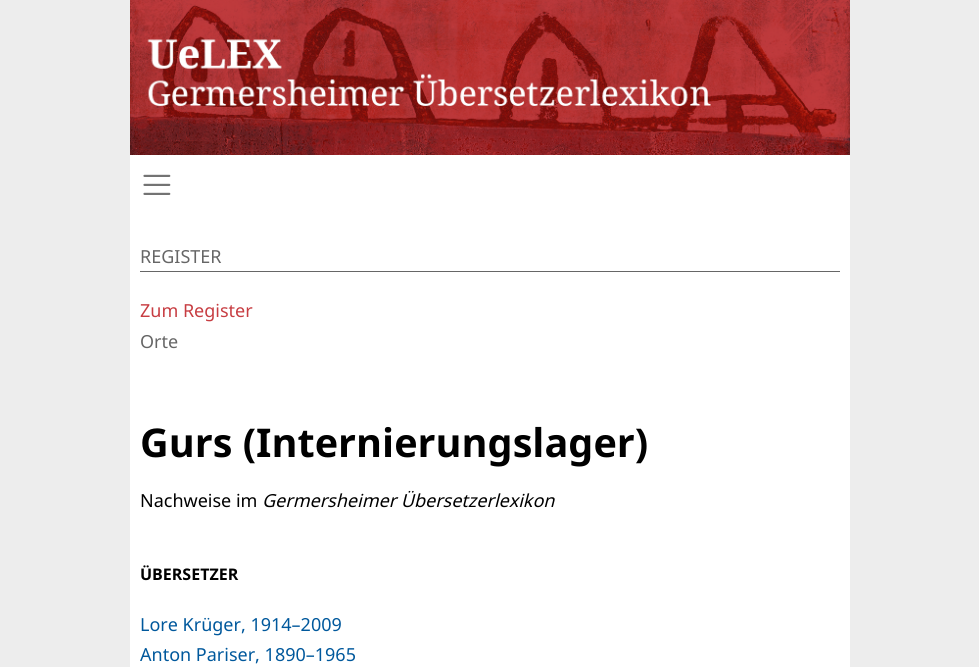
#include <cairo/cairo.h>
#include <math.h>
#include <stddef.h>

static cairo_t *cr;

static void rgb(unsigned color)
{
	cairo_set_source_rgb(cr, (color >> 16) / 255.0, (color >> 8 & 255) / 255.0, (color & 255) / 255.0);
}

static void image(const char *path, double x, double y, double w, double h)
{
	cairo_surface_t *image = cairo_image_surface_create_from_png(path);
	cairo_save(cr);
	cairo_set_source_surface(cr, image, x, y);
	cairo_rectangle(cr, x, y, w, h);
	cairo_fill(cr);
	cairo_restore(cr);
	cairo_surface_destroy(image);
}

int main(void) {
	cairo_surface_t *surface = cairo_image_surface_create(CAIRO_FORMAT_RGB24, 979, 667);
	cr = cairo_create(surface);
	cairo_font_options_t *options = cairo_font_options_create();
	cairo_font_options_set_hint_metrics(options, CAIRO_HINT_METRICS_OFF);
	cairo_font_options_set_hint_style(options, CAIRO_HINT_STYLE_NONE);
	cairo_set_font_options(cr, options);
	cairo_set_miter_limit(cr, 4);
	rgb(0xededed);
	cairo_paint(cr);
	rgb(0xffffff);
	cairo_rectangle(cr, 130, 155, 720, 512);
	cairo_fill(cr);
	image("img/1.png", 130, 0, 720, 155);
	image("img/2.png", 143, 174, 28, 21);
	rgb(0x666666);
	cairo_rectangle(cr, 140, 271, 700, 1);
	cairo_fill(cr);
	cairo_select_font_face(cr, "Noto Sans", CAIRO_FONT_SLANT_NORMAL, CAIRO_FONT_WEIGHT_NORMAL);
	cairo_set_font_size(cr, 18);
	cairo_move_to(cr, 140, 263);
	cairo_show_text(cr, "REGISTER");
	rgb(0xc73d42);
	cairo_move_to(cr, 140, 317);
	cairo_show_text(cr, "Zum Register");
	rgb(0x666666);
	cairo_move_to(cr, 140, 348);
	cairo_show_text(cr, "Orte");
	cairo_select_font_face(cr, "Noto Sans", CAIRO_FONT_SLANT_NORMAL, CAIRO_FONT_WEIGHT_BOLD);
	cairo_set_font_size(cr, 39.6);
	rgb(0x000000);
	cairo_move_to(cr, 140, 457);
	cairo_show_text(cr, "Gurs (Internierungslager)");
	cairo_select_font_face(cr, "Noto Sans", CAIRO_FONT_SLANT_NORMAL, CAIRO_FONT_WEIGHT_NORMAL);
	cairo_set_font_size(cr, 18);
	cairo_move_to(cr, 140, 507);
	cairo_show_text(cr, "Nachweise im");
	cairo_select_font_face(cr, "Noto Sans", CAIRO_FONT_SLANT_ITALIC, CAIRO_FONT_WEIGHT_NORMAL);
	cairo_move_to(cr, 262, 507);
	cairo_show_text(cr, "Germersheimer Übersetzerlexikon");
	cairo_select_font_face(cr, "Noto Sans", CAIRO_FONT_SLANT_NORMAL, CAIRO_FONT_WEIGHT_BOLD);
	cairo_set_font_size(cr, 16);
	cairo_move_to(cr, 140, 580);
	cairo_show_text(cr, "ÜBERSETZER");
	cairo_select_font_face(cr, "Noto Sans", CAIRO_FONT_SLANT_NORMAL, CAIRO_FONT_WEIGHT_NORMAL);
	cairo_set_font_size(cr, 18);
	rgb(0x00589c);
	cairo_move_to(cr, 140, 631);
	cairo_show_text(cr, "Lore Krüger, 1914–2009");
	cairo_move_to(cr, 140, 661);
	cairo_show_text(cr, "Anton Pariser, 1890–1965");
	cairo_surface_write_to_png(surface, "page.png");
	cairo_font_options_destroy(options);
	cairo_destroy(cr);
	cairo_surface_destroy(surface);
	return 0;
}
